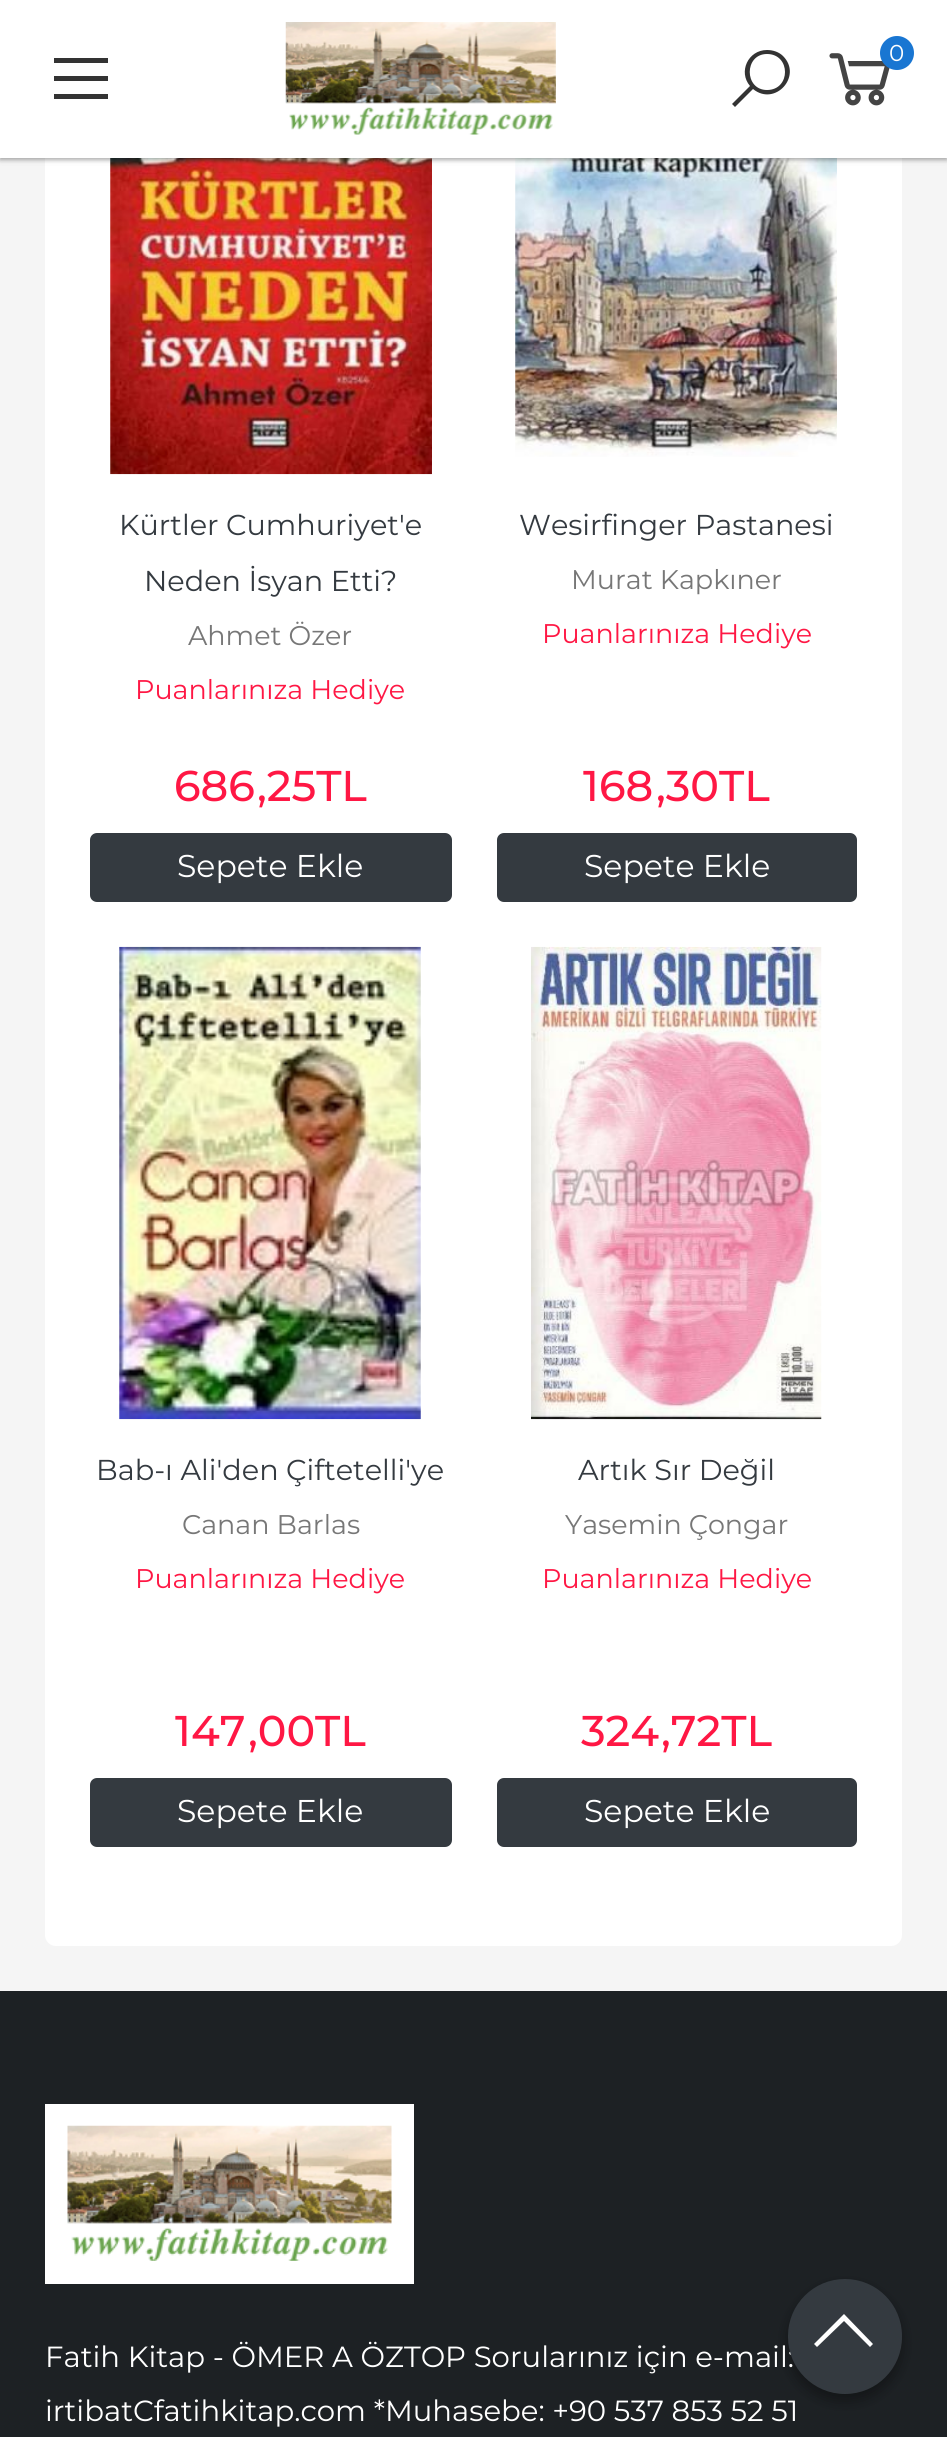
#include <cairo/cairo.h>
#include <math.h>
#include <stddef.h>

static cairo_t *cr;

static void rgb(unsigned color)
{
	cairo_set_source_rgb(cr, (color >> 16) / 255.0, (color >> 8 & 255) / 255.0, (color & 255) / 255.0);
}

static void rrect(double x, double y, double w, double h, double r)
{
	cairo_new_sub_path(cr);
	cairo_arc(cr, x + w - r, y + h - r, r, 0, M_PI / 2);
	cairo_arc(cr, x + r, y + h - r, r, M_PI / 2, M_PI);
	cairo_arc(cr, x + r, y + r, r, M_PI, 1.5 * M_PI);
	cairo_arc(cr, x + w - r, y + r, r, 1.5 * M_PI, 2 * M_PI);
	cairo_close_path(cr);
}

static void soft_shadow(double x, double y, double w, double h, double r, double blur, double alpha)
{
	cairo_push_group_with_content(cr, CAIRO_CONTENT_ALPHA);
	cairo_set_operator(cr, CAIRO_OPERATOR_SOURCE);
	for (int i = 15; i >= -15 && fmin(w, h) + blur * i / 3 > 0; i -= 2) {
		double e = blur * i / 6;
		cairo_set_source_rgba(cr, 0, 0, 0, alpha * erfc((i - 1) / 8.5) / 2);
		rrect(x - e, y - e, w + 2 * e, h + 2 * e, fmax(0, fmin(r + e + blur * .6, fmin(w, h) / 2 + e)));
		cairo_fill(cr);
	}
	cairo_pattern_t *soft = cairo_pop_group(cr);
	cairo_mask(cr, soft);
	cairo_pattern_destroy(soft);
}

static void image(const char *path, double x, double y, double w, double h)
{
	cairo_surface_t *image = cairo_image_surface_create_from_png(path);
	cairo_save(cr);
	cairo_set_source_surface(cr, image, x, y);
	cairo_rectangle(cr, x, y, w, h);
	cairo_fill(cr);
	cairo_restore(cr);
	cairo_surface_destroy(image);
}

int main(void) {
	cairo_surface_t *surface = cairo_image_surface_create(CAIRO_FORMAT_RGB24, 947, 2437);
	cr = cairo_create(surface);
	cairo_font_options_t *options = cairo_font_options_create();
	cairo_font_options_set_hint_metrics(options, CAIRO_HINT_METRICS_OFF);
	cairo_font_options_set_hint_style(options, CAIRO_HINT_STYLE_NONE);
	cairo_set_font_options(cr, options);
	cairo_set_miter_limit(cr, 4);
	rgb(0xf5f5f5);
	cairo_paint(cr);
	rgb(0xffffff);
	rrect(45, -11, 857, 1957, 11);
	cairo_fill(cr);
	image("img/3.png", 110, 158, 322, 317);
	image("img/4.png", 515, 158, 322, 299);
	rgb(0x000000);
	soft_shadow(0, 2, 947, 158, 0, 2, 0.24);
	soft_shadow(0, 2, 947, 158, 0, 3.5, 0.12);
	rgb(0xffffff);
	cairo_rectangle(cr, 0, 0, 947, 158);
	cairo_fill(cr);
	rgb(0x333333);
	cairo_new_path(cr);
	cairo_move_to(cr, 54, 58);
	cairo_line_to(cr, 54, 63);
	cairo_line_to(cr, 108, 63);
	cairo_line_to(cr, 108, 58);
	cairo_close_path(cr);
	cairo_move_to(cr, 54, 76);
	cairo_line_to(cr, 54, 81);
	cairo_line_to(cr, 108, 81);
	cairo_line_to(cr, 108, 76);
	cairo_close_path(cr);
	cairo_move_to(cr, 54, 94);
	cairo_line_to(cr, 54, 99);
	cairo_line_to(cr, 108, 99);
	cairo_line_to(cr, 108, 94);
	cairo_close_path(cr);
	cairo_fill(cr);
	image("img/1.png", 285, 22, 271, 113);
	cairo_new_path(cr);
	cairo_move_to(cr, 767, 50);
	cairo_curve_to(cr, 748, 50, 738, 72, 750, 86);
	cairo_line_to(cr, 732, 104);
	cairo_line_to(cr, 735, 107);
	cairo_line_to(cr, 753, 89);
	cairo_curve_to(cr, 775, 107, 803, 76, 783, 56);
	cairo_curve_to(cr, 779, 52, 773, 50, 767, 50);
	cairo_close_path(cr);
	cairo_move_to(cr, 767, 54);
	cairo_curve_to(cr, 791, 54, 791, 90, 767, 90);
	cairo_curve_to(cr, 744, 90, 744, 54, 767, 54);
	cairo_close_path(cr);
	cairo_fill(cr);
	image("img/2.png", 829, 53, 61, 53);
	rgb(0x1976d2);
	cairo_arc(cr, 897, 53, 17, 0, 2 * M_PI);
	cairo_fill(cr);
	rgb(0x343a40);
	rrect(91, 834, 360, 67, 6);
	cairo_fill_preserve(cr);
	cairo_stroke(cr);
	rrect(498, 834, 358, 67, 6);
	cairo_fill_preserve(cr);
	cairo_stroke(cr);
	image("img/5.png", 119, 946, 302, 474);
	rrect(91, 1779, 360, 67, 6);
	cairo_fill_preserve(cr);
	cairo_stroke(cr);
	image("img/6.png", 531, 946, 291, 474);
	rrect(498, 1779, 358, 67, 6);
	cairo_fill_preserve(cr);
	cairo_stroke(cr);
	rgb(0x1d2124);
	cairo_rectangle(cr, 0, 1991, 947, 446);
	cairo_fill(cr);
	rgb(0xffffff);
	cairo_rectangle(cr, 45, 2104, 369, 180);
	cairo_fill(cr);
	image("img/7.png", 67, 2125, 325, 136);
	rgb(0x000000);
	soft_shadow(788, 2286, 114, 115, 57, 7, 0.23);
	soft_shadow(788, 2286, 114, 115, 57, 7, 0.16);
	cairo_select_font_face(cr, "Montserrat", CAIRO_FONT_SLANT_NORMAL, CAIRO_FONT_WEIGHT_NORMAL);
	cairo_set_font_size(cr, 23);
	rgb(0xffffff);
	cairo_move_to(cr, 889, 61);
	cairo_show_text(cr, "0");
	cairo_set_font_size(cr, 28.75);
	rgb(0x343a40);
	cairo_move_to(cr, 119, 535);
	cairo_show_text(cr, "Kürtler Cumhuriyet'e");
	cairo_move_to(cr, 144, 591);
	cairo_show_text(cr, "Neden İsyan Etti?");
	cairo_set_font_size(cr, 27);
	rgb(0x777777);
	cairo_move_to(cr, 188, 645);
	cairo_show_text(cr, "Ahmet Özer");
	rgb(0xff1744);
	cairo_move_to(cr, 135, 699);
	cairo_show_text(cr, "Puanlarınıza Hediye");
	cairo_select_font_face(cr, "Montserrat Medium", CAIRO_FONT_SLANT_NORMAL, CAIRO_FONT_WEIGHT_NORMAL);
	cairo_set_font_size(cr, 43);
	cairo_move_to(cr, 174, 801);
	cairo_show_text(cr, "686");
	cairo_move_to(cr, 257, 801);
	cairo_show_text(cr, ",25TL");
	cairo_select_font_face(cr, "Montserrat", CAIRO_FONT_SLANT_NORMAL, CAIRO_FONT_WEIGHT_NORMAL);
	cairo_set_font_size(cr, 31.5);
	rgb(0xffffff);
	cairo_move_to(cr, 177, 877);
	cairo_show_text(cr, "Sepete Ekle");
	cairo_set_font_size(cr, 28.75);
	rgb(0x343a40);
	cairo_move_to(cr, 519, 535);
	cairo_show_text(cr, "Wesirfinger Pastanesi");
	cairo_set_font_size(cr, 27);
	rgb(0x777777);
	cairo_move_to(cr, 571, 589);
	cairo_show_text(cr, "Murat Kapkıner");
	rgb(0xff1744);
	cairo_move_to(cr, 542, 643);
	cairo_show_text(cr, "Puanlarınıza Hediye");
	cairo_select_font_face(cr, "Montserrat Medium", CAIRO_FONT_SLANT_NORMAL, CAIRO_FONT_WEIGHT_NORMAL);
	cairo_set_font_size(cr, 43);
	cairo_move_to(cr, 583, 801);
	cairo_show_text(cr, "168");
	cairo_move_to(cr, 656, 801);
	cairo_show_text(cr, ",30TL");
	cairo_select_font_face(cr, "Montserrat", CAIRO_FONT_SLANT_NORMAL, CAIRO_FONT_WEIGHT_NORMAL);
	cairo_set_font_size(cr, 31.5);
	rgb(0xffffff);
	cairo_move_to(cr, 584, 877);
	cairo_show_text(cr, "Sepete Ekle");
	cairo_set_font_size(cr, 28.75);
	rgb(0x343a40);
	cairo_move_to(cr, 96, 1480);
	cairo_show_text(cr, "Bab-ı Ali'den Çiftetelli'ye");
	cairo_set_font_size(cr, 27);
	rgb(0x777777);
	cairo_move_to(cr, 182, 1534);
	cairo_show_text(cr, "Canan Barlas");
	rgb(0xff1744);
	cairo_move_to(cr, 135, 1588);
	cairo_show_text(cr, "Puanlarınıza Hediye");
	cairo_select_font_face(cr, "Montserrat Medium", CAIRO_FONT_SLANT_NORMAL, CAIRO_FONT_WEIGHT_NORMAL);
	cairo_set_font_size(cr, 43);
	cairo_move_to(cr, 175, 1746);
	cairo_show_text(cr, "147");
	cairo_move_to(cr, 248, 1746);
	cairo_show_text(cr, ",00TL");
	cairo_select_font_face(cr, "Montserrat", CAIRO_FONT_SLANT_NORMAL, CAIRO_FONT_WEIGHT_NORMAL);
	cairo_set_font_size(cr, 31.5);
	rgb(0xffffff);
	cairo_move_to(cr, 177, 1822);
	cairo_show_text(cr, "Sepete Ekle");
	cairo_set_font_size(cr, 28.75);
	rgb(0x343a40);
	cairo_move_to(cr, 578, 1480);
	cairo_show_text(cr, "Artık Sır Değil");
	cairo_set_font_size(cr, 27);
	rgb(0x777777);
	cairo_move_to(cr, 565, 1534);
	cairo_show_text(cr, "Yasemin Çongar");
	rgb(0xff1744);
	cairo_move_to(cr, 542, 1588);
	cairo_show_text(cr, "Puanlarınıza Hediye");
	cairo_select_font_face(cr, "Montserrat Medium", CAIRO_FONT_SLANT_NORMAL, CAIRO_FONT_WEIGHT_NORMAL);
	cairo_set_font_size(cr, 43);
	cairo_move_to(cr, 581, 1746);
	cairo_show_text(cr, "324");
	cairo_move_to(cr, 661, 1746);
	cairo_show_text(cr, ",72TL");
	cairo_select_font_face(cr, "Montserrat", CAIRO_FONT_SLANT_NORMAL, CAIRO_FONT_WEIGHT_NORMAL);
	cairo_set_font_size(cr, 31.5);
	rgb(0xffffff);
	cairo_move_to(cr, 584, 1822);
	cairo_show_text(cr, "Sepete Ekle");
	cairo_set_font_size(cr, 29.15);
	cairo_move_to(cr, 45, 2367);
	cairo_show_text(cr, "Fatih Kitap - ÖMER A ÖZTOP Sorularınız için e-mail:");
	cairo_move_to(cr, 45, 2421);
	cairo_show_text(cr, "irtibatCfatihkitap.com *Muhasebe: +90 537 853 52 51");
	rgb(0x343a40);
	rrect(788, 2279, 114, 115, 57);
	cairo_fill(cr);
	rgb(0xffffff);
	cairo_new_path(cr);
	cairo_move_to(cr, 844, 2314);
	cairo_line_to(cr, 814, 2344);
	cairo_line_to(cr, 817, 2347);
	cairo_line_to(cr, 844, 2321);
	cairo_line_to(cr, 870, 2347);
	cairo_line_to(cr, 873, 2344);
	cairo_close_path(cr);
	cairo_fill(cr);
	cairo_surface_write_to_png(surface, "page.png");
	cairo_font_options_destroy(options);
	cairo_destroy(cr);
	cairo_surface_destroy(surface);
	return 0;
}
